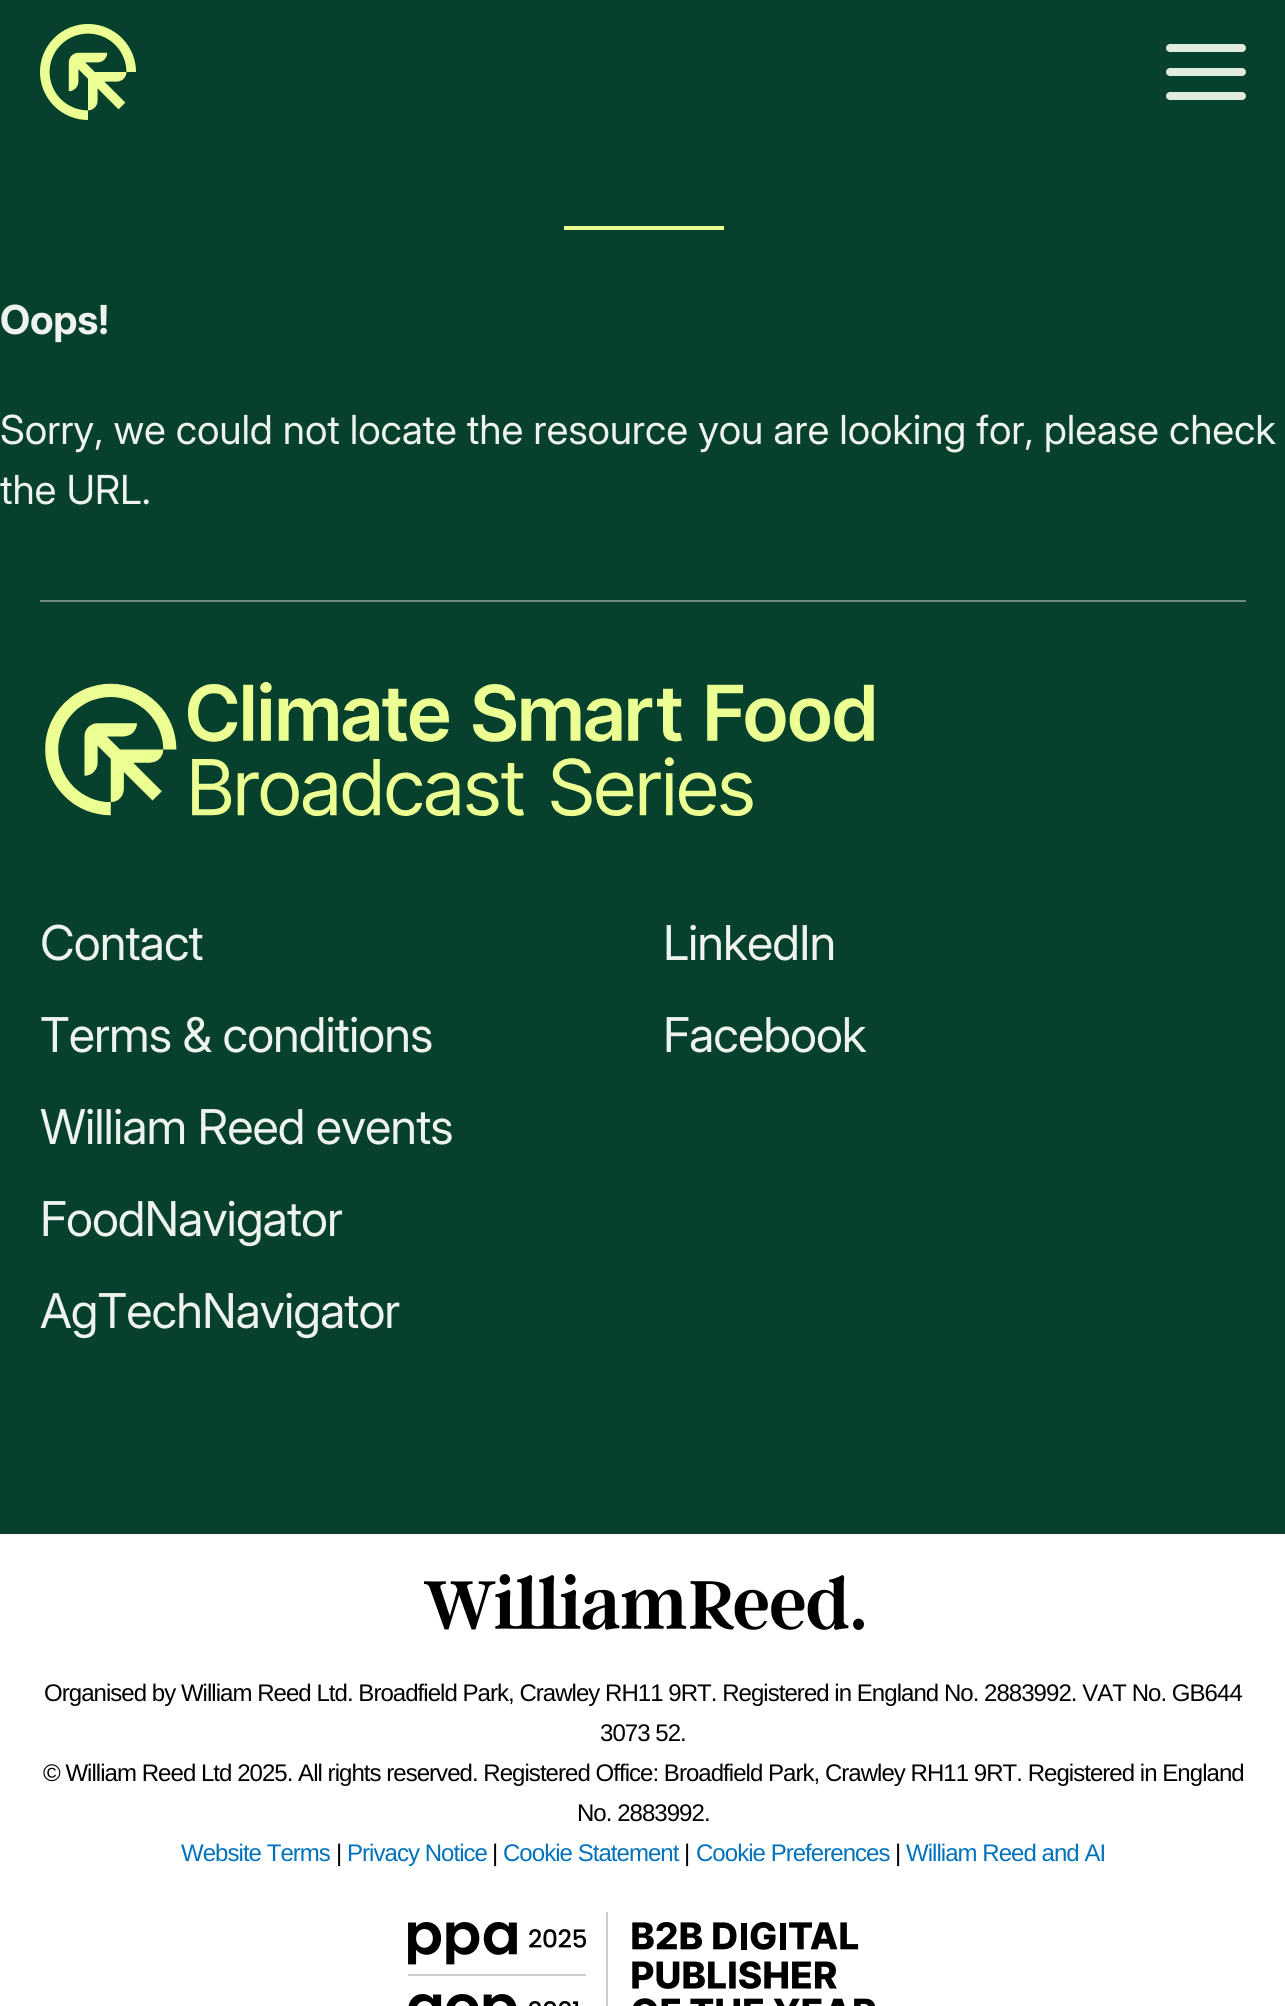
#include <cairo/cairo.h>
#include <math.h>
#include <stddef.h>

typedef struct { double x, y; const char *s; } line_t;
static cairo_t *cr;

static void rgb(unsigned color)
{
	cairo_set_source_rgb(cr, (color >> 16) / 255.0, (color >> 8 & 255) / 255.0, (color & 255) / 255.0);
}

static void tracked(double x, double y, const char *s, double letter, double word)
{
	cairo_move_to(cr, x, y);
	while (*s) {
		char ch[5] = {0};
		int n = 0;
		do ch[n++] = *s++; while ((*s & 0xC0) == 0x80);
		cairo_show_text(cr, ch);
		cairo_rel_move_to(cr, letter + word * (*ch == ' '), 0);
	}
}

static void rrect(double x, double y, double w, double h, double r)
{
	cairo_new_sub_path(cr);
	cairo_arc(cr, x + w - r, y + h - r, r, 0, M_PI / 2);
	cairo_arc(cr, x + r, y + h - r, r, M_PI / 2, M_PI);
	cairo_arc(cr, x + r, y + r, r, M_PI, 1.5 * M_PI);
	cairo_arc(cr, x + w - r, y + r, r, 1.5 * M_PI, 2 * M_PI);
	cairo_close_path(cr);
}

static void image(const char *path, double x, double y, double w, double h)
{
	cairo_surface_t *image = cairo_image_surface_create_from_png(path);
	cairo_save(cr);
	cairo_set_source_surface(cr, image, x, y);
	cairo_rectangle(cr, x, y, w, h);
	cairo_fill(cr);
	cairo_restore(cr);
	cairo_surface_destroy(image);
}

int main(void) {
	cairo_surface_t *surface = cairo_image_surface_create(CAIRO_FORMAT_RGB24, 1285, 2006);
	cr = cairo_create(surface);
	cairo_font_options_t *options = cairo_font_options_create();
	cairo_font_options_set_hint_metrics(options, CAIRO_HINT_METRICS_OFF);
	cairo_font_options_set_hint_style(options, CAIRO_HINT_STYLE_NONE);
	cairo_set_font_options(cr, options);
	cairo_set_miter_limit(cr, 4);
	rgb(0x07402c);
	cairo_paint(cr);
	image("img/1.png", 40, 24, 96, 96);
	rgb(0xe2ebe2);
	rrect(1166, 44, 80, 8, 4);
	cairo_fill(cr);
	rrect(1166, 68, 80, 8, 4);
	cairo_fill(cr);
	rrect(1166, 92, 80, 8, 4);
	cairo_fill(cr);
	rgb(0xebff93);
	cairo_rectangle(cr, 564, 226, 160, 4);
	cairo_fill(cr);
	rgb(0x6a8c80);
	cairo_rectangle(cr, 40, 600, 1206, 2);
	cairo_fill(cr);
	image("img/2.png", 45, 682, 829, 135);
	rgb(0xffffff);
	cairo_rectangle(cr, 0, 1534, 1285, 472);
	cairo_fill(cr);
	image("img/3.png", 424, 1574, 440, 56);
	image("img/4.png", 408, 1912, 467, 94);
	cairo_select_font_face(cr, "Inter", CAIRO_FONT_SLANT_NORMAL, CAIRO_FONT_WEIGHT_BOLD);
	cairo_set_font_size(cr, 40);
	rgb(0xeef3ee);
	tracked(0, 334, "Oops!", -0.15, 0);
	cairo_select_font_face(cr, "Inter", CAIRO_FONT_SLANT_NORMAL, CAIRO_FONT_WEIGHT_NORMAL);
	tracked(0, 444, "Sorry, we could not locate the resource you are looking for, please check", -0.15, 0);
	tracked(0, 504, "the URL.", -0.15, 0);
	cairo_set_font_size(cr, 48);
	{
		static const line_t items[] = {
			{40, 960, "Contact"},
			{40, 1052, "Terms & conditions"},
			{40, 1144, "William Reed events"},
			{40, 1236, "FoodNavigator"},
			{40, 1328, "AgTechNavigator"},
			{663, 960, "LinkedIn"},
			{663, 1052, "Facebook"},
		};
		for (size_t i = 0; i < sizeof items / sizeof *items; i++) {
			tracked(items[i].x, items[i].y, items[i].s, -0.96, 0);
		}
	}
	cairo_select_font_face(cr, "Liberation Sans", CAIRO_FONT_SLANT_NORMAL, CAIRO_FONT_WEIGHT_NORMAL);
	cairo_set_font_size(cr, 24);
	rgb(0x000000);
	{
		static const line_t items[] = {
			{44, 1701, "Organised by William Reed Ltd. Broadfield Park, Crawley RH11 9RT. Registered in England No. 2883992. VAT No. GB644"},
			{600, 1741, "3073 52."},
			{43, 1781, "© William Reed Ltd 2025. All rights reserved. Registered Office: Broadfield Park, Crawley RH11 9RT. Registered in England"},
			{577, 1821, "No. 2883992."},
		};
		for (size_t i = 0; i < sizeof items / sizeof *items; i++) {
			tracked(items[i].x, items[i].y, items[i].s, -0.96, 0);
		}
	}
	rgb(0x0072bc);
	tracked(181, 1861, "Website Terms", -0.96, 0);
	rgb(0x000000);
	tracked(336, 1861, "|", -0.96, 0);
	rgb(0x0072bc);
	tracked(347, 1861, "Privacy Notice", -0.96, 0);
	rgb(0x000000);
	tracked(492, 1861, "|", -0.96, 0);
	rgb(0x0072bc);
	tracked(503, 1861, "Cookie Statement", -0.96, 0);
	rgb(0x000000);
	tracked(684, 1861, "|", -0.96, 0);
	rgb(0x0072bc);
	tracked(696, 1861, "Cookie Preferences", -0.96, 0);
	rgb(0x000000);
	tracked(895, 1861, "|", -0.96, 0);
	rgb(0x0072bc);
	tracked(906, 1861, "William Reed and AI", -0.96, 0);
	cairo_surface_write_to_png(surface, "page.png");
	cairo_font_options_destroy(options);
	cairo_destroy(cr);
	cairo_surface_destroy(surface);
	return 0;
}
